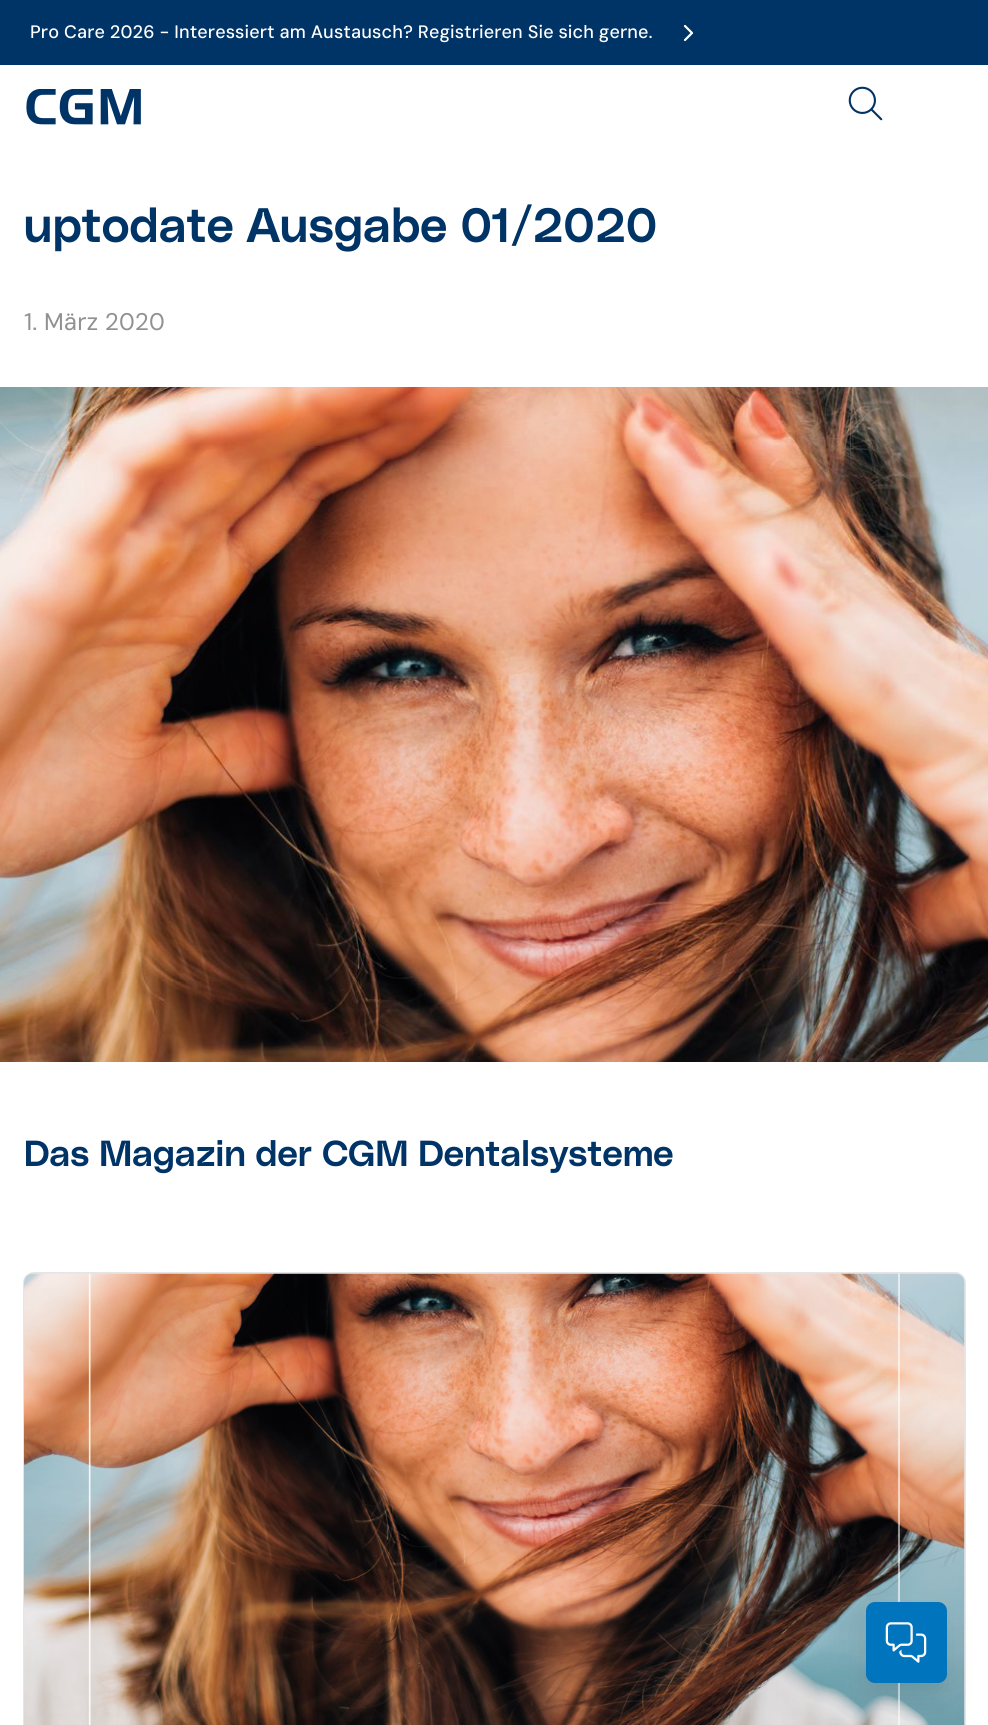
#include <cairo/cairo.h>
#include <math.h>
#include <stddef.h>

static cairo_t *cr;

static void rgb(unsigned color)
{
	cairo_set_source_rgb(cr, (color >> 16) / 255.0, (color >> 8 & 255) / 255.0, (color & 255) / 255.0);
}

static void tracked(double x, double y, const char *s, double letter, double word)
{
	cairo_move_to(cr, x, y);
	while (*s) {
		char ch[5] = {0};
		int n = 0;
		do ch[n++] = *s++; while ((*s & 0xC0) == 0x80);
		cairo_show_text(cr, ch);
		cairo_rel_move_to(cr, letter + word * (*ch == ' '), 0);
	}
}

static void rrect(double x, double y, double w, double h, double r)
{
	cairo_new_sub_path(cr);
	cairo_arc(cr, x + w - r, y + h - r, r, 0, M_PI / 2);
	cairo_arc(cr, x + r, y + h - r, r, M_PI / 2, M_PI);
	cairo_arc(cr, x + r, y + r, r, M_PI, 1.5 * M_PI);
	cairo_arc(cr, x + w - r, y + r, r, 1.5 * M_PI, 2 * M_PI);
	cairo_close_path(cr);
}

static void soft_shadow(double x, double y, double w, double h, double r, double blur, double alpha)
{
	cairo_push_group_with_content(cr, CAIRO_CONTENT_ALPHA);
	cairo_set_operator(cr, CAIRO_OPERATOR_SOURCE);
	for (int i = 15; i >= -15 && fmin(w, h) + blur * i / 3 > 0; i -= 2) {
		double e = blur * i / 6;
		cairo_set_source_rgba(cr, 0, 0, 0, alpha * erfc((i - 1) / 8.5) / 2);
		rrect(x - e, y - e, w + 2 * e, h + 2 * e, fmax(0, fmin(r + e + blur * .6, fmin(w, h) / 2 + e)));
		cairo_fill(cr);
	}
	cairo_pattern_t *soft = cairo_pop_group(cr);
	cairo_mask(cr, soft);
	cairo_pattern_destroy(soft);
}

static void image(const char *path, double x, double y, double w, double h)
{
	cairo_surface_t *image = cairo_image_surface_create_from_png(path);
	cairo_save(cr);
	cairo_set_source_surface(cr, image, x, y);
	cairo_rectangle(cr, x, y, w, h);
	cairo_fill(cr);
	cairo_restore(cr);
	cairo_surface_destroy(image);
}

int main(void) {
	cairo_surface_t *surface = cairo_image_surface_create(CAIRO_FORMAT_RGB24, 988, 1725);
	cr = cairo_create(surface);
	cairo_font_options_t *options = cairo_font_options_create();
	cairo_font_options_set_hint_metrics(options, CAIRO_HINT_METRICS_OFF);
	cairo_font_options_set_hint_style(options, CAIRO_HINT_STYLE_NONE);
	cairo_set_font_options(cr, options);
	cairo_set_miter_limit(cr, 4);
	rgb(0xffffff);
	cairo_paint(cr);
	rgb(0x003366);
	cairo_rectangle(cr, 0, 0, 988, 65);
	cairo_fill(cr);
	cairo_new_path(cr);
	cairo_move_to(cr, 685, 26);
	cairo_line_to(cr, 692, 33);
	cairo_line_to(cr, 685, 40);
	rgb(0xffffff);
	cairo_set_line_width(cr, 2.2);
	cairo_set_line_cap(cr, CAIRO_LINE_CAP_ROUND);
	cairo_set_line_join(cr, CAIRO_LINE_JOIN_ROUND);
	cairo_stroke(cr);
	image("img/1.png", 26, 89, 115, 36);
	image("img/2.png", 848, 86, 35, 35);
	rrect(24, 1273, 941, 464, 10);
	rgb(0xe5e5e5);
	cairo_set_line_width(cr, 2);
	cairo_set_line_cap(cr, CAIRO_LINE_CAP_BUTT);
	cairo_set_line_join(cr, CAIRO_LINE_JOIN_MITER);
	cairo_stroke(cr);
	image("img/5.png", 24, 1273, 941, 452);
	rgb(0x000000);
	soft_shadow(866, 1617, 81, 81, 9, 15, 0.1);
	rgb(0x0074bc);
	rrect(867, 1603, 79, 79, 8);
	cairo_fill_preserve(cr);
	cairo_stroke(cr);
	image("img/3.png", 885, 1622, 42, 41);
	image("img/4.png", 0, 387, 988, 675);
	cairo_select_font_face(cr, "DM Sans Medium", CAIRO_FONT_SLANT_NORMAL, CAIRO_FONT_WEIGHT_NORMAL);
	cairo_set_font_size(cr, 18);
	rgb(0xffffff);
	tracked(30, 38, "Pro Care 2026 - Interessiert am Austausch? Registrieren Sie sich gerne.", 0.1, 0);
	cairo_select_font_face(cr, "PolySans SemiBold", CAIRO_FONT_SLANT_NORMAL, CAIRO_FONT_WEIGHT_NORMAL);
	cairo_set_font_size(cr, 48);
	rgb(0x003366);
	tracked(24, 242, "uptodate Ausgabe 01/2020", 0.1, 0);
	cairo_select_font_face(cr, "DM Sans", CAIRO_FONT_SLANT_NORMAL, CAIRO_FONT_WEIGHT_NORMAL);
	cairo_set_font_size(cr, 24);
	rgb(0x919191);
	tracked(24, 330, "1. März 2020", 0.1, 0);
	cairo_select_font_face(cr, "PolySans SemiBold", CAIRO_FONT_SLANT_NORMAL, CAIRO_FONT_WEIGHT_NORMAL);
	cairo_set_font_size(cr, 36);
	rgb(0x003366);
	tracked(24, 1166, "Das Magazin der CGM Dentalsysteme", 0.1, 0);
	cairo_surface_write_to_png(surface, "page.png");
	cairo_font_options_destroy(options);
	cairo_destroy(cr);
	cairo_surface_destroy(surface);
	return 0;
}
